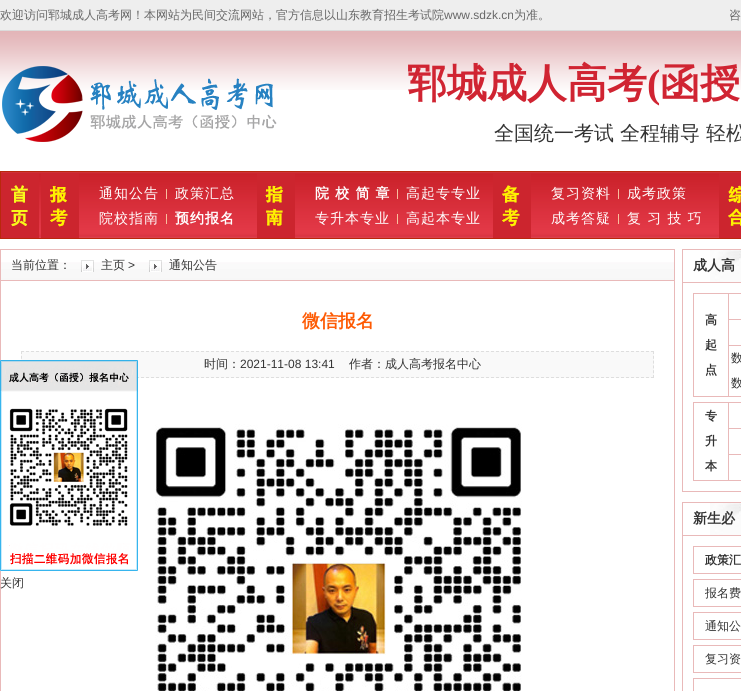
#include <cairo/cairo.h>
#include <math.h>
#include <stddef.h>

typedef struct { double x, y; const char *s; } line_t;
typedef struct { double x, y, w, h; unsigned color; } box_t;
static cairo_t *cr;

static void rgb(unsigned color)
{
	cairo_set_source_rgb(cr, (color >> 16) / 255.0, (color >> 8 & 255) / 255.0, (color & 255) / 255.0);
}

static void tracked(double x, double y, const char *s, double letter, double word)
{
	cairo_move_to(cr, x, y);
	while (*s) {
		char ch[5] = {0};
		int n = 0;
		do ch[n++] = *s++; while ((*s & 0xC0) == 0x80);
		cairo_show_text(cr, ch);
		cairo_rel_move_to(cr, letter + word * (*ch == ' '), 0);
	}
}

static void image(const char *path, double x, double y, double w, double h)
{
	cairo_surface_t *image = cairo_image_surface_create_from_png(path);
	cairo_save(cr);
	cairo_set_source_surface(cr, image, x, y);
	cairo_rectangle(cr, x, y, w, h);
	cairo_fill(cr);
	cairo_restore(cr);
	cairo_surface_destroy(image);
}

int main(void) {
	cairo_surface_t *surface = cairo_image_surface_create(CAIRO_FORMAT_RGB24, 741, 691);
	cr = cairo_create(surface);
	cairo_font_options_t *options = cairo_font_options_create();
	cairo_font_options_set_hint_metrics(options, CAIRO_HINT_METRICS_OFF);
	cairo_font_options_set_hint_style(options, CAIRO_HINT_STYLE_NONE);
	cairo_set_font_options(cr, options);
	cairo_set_miter_limit(cr, 4);
	rgb(0xffffff);
	cairo_paint(cr);
	rgb(0xeeeeee);
	cairo_rectangle(cr, 0, 0, 741, 30);
	cairo_fill(cr);
	rgb(0xdbdbdb);
	cairo_rectangle(cr, 0, 30, 741, 1);
	cairo_fill(cr);
	image("img/1.png", 0, 31, 741, 59);
	image("img/2.png", 2, 66, 275, 76);
	image("img/3.png", 1, 172, 740, 66);
	cairo_rectangle(cr, 0.5, 171.5, 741, 67);
	rgb(0xb9280c);
	cairo_set_line_width(cr, 1);
	cairo_stroke(cr);
	image("img/4.png", 1, 173, 38, 65);
	image("img/5.png", 41, 173, 38, 65);
	rgb(0xf9be9e);
	cairo_rectangle(cr, 166, 189, 1, 10);
	cairo_fill(cr);
	cairo_rectangle(cr, 166, 214, 1, 10);
	cairo_fill(cr);
	image("img/6.png", 257, 173, 38, 65);
	cairo_rectangle(cr, 397, 189, 1, 10);
	cairo_fill(cr);
	cairo_rectangle(cr, 397, 214, 1, 10);
	cairo_fill(cr);
	image("img/7.png", 493, 173, 38, 65);
	cairo_rectangle(cr, 618, 189, 1, 10);
	cairo_fill(cr);
	cairo_rectangle(cr, 618, 214, 1, 10);
	cairo_fill(cr);
	image("img/8.png", 719, 173, 22, 65);
	cairo_rectangle(cr, 0.5, 249.5, 674, 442);
	rgb(0xe9b9b9);
	cairo_stroke(cr);
	rgb(0xf9f9f9);
	cairo_rectangle(cr, 21, 351, 633, 27);
	cairo_fill(cr);
	cairo_new_path(cr);
	cairo_move_to(cr, 21, 351.5);
	cairo_line_to(cr, 654, 351.5);
	rgb(0xdedede);
	cairo_set_dash(cr, (double[]){3, 2}, 2, 0);
	cairo_stroke(cr);
	cairo_new_path(cr);
	cairo_move_to(cr, 653.5, 351);
	cairo_line_to(cr, 653.5, 378);
	cairo_set_dash(cr, (double[]){3, 1.8}, 2, 0);
	cairo_stroke(cr);
	cairo_new_path(cr);
	cairo_move_to(cr, 21, 377.5);
	cairo_line_to(cr, 654, 377.5);
	cairo_set_dash(cr, (double[]){3, 2}, 2, 0);
	cairo_stroke(cr);
	cairo_new_path(cr);
	cairo_move_to(cr, 21.5, 351);
	cairo_line_to(cr, 21.5, 378);
	cairo_set_dash(cr, (double[]){3, 1.8}, 2, 0);
	cairo_stroke(cr);
	image("img/9.png", 0, 360, 138, 211);
	image("img/10.png", 1, 262, 673, 18);
	rgb(0xe9b9b9);
	cairo_rectangle(cr, 1, 280, 673, 1);
	cairo_fill(cr);
	image("img/11.png", 81, 260, 13, 12);
	image("img/11.png", 149, 260, 13, 12);
	image("img/12.png", 155, 424, 367, 267);
	image("img/13.png", 710, 250, 31, 32);
	cairo_rectangle(cr, 682, 249, 59, 1);
	cairo_fill(cr);
	cairo_rectangle(cr, 682, 249, 1, 33);
	cairo_fill(cr);
	cairo_rectangle(cr, 682.5, 282.5, 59, 209);
	cairo_set_dash(cr, NULL, 0, 0);
	cairo_stroke(cr);
	{
		static const box_t items[] = {
			{693, 293, 48, 104, 0xe9b9b9},
			{729, 294, 12, 25, 0xffffff},
			{694, 294, 34, 102, 0xffffff},
			{729, 320, 12, 25, 0xffffff},
			{729, 346, 12, 50, 0xffffff},
			{693, 402, 48, 79, 0xe9b9b9},
			{694, 403, 34, 77, 0xffffff},
			{729, 403, 12, 25, 0xffffff},
			{729, 429, 12, 25, 0xffffff},
			{729, 455, 12, 25, 0xffffff},
		};
		for (size_t i = 0; i < sizeof items / sizeof *items; i++) {
			rgb(items[i].color);
			cairo_rectangle(cr, items[i].x, items[i].y, items[i].w, items[i].h);
			cairo_fill(cr);
		}
	}
	image("img/13.png", 710, 503, 31, 32);
	rgb(0xe9b9b9);
	cairo_rectangle(cr, 682, 502, 59, 1);
	cairo_fill(cr);
	cairo_rectangle(cr, 682, 502, 1, 33);
	cairo_fill(cr);
	cairo_rectangle(cr, 682.5, 535.5, 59, 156);
	cairo_stroke(cr);
	cairo_rectangle(cr, 693.5, 546.5, 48, 27);
	cairo_stroke(cr);
	cairo_rectangle(cr, 693.5, 579.5, 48, 27);
	cairo_stroke(cr);
	cairo_rectangle(cr, 693.5, 612.5, 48, 27);
	cairo_stroke(cr);
	cairo_rectangle(cr, 693.5, 645.5, 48, 27);
	cairo_stroke(cr);
	cairo_rectangle(cr, 693.5, 678.5, 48, 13);
	cairo_stroke(cr);
	cairo_select_font_face(cr, "WenQuanYi Zen Hei Medium", CAIRO_FONT_SLANT_NORMAL, CAIRO_FONT_WEIGHT_NORMAL);
	cairo_set_font_size(cr, 12);
	rgb(0x676767);
	cairo_move_to(cr, 0, 19);
	cairo_show_text(cr, "欢迎访问郓城成人高考网！本网站为民间交流网站，官方信息以山东教育招生考试院");
	cairo_select_font_face(cr, "Liberation Sans", CAIRO_FONT_SLANT_NORMAL, CAIRO_FONT_WEIGHT_NORMAL);
	cairo_move_to(cr, 444, 19);
	cairo_show_text(cr, "www.sdzk.cn");
	cairo_select_font_face(cr, "WenQuanYi Zen Hei Medium", CAIRO_FONT_SLANT_NORMAL, CAIRO_FONT_WEIGHT_NORMAL);
	cairo_move_to(cr, 514, 19);
	cairo_show_text(cr, "为准。");
	cairo_move_to(cr, 729, 19);
	cairo_show_text(cr, "咨");
	cairo_select_font_face(cr, "WenQuanYi Zen Hei", CAIRO_FONT_SLANT_NORMAL, CAIRO_FONT_WEIGHT_BOLD);
	cairo_set_font_size(cr, 40);
	rgb(0xd02432);
	cairo_move_to(cr, 407, 97);
	cairo_show_text(cr, "郓城成人高考");
	cairo_select_font_face(cr, "Liberation Serif", CAIRO_FONT_SLANT_NORMAL, CAIRO_FONT_WEIGHT_BOLD);
	cairo_move_to(cr, 647, 97);
	cairo_show_text(cr, "(");
	cairo_select_font_face(cr, "WenQuanYi Zen Hei", CAIRO_FONT_SLANT_NORMAL, CAIRO_FONT_WEIGHT_BOLD);
	cairo_move_to(cr, 660, 97);
	cairo_show_text(cr, "函授");
	cairo_select_font_face(cr, "WenQuanYi Zen Hei Medium", CAIRO_FONT_SLANT_NORMAL, CAIRO_FONT_WEIGHT_NORMAL);
	cairo_set_font_size(cr, 20);
	rgb(0x333333);
	cairo_move_to(cr, 494, 140);
	cairo_show_text(cr, "全国统一考试 全程辅导 轻松");
	cairo_set_font_size(cr, 14);
	rgb(0xffffff);
	{
		static const line_t items[] = {
			{99, 198, "通知公告"},
			{175, 198, "政策汇总"},
			{99, 223, "院校指南"},
		};
		for (size_t i = 0; i < sizeof items / sizeof *items; i++) {
			tracked(items[i].x, items[i].y, items[i].s, 1, 0);
		}
	}
	cairo_select_font_face(cr, "WenQuanYi Zen Hei", CAIRO_FONT_SLANT_NORMAL, CAIRO_FONT_WEIGHT_BOLD);
	tracked(175, 223, "预约报名", 1, 0);
	tracked(315, 198, "院 校 简 章", 1, 0);
	cairo_select_font_face(cr, "WenQuanYi Zen Hei Medium", CAIRO_FONT_SLANT_NORMAL, CAIRO_FONT_WEIGHT_NORMAL);
	{
		static const line_t items[] = {
			{406, 198, "高起专专业"},
			{315, 223, "专升本专业"},
			{406, 223, "高起本专业"},
			{551, 198, "复习资料"},
			{627, 198, "成考政策"},
			{551, 223, "成考答疑"},
			{627, 223, "复 习 技 巧"},
		};
		for (size_t i = 0; i < sizeof items / sizeof *items; i++) {
			tracked(items[i].x, items[i].y, items[i].s, 1, 0);
		}
	}
	cairo_set_font_size(cr, 12);
	rgb(0x333333);
	{
		static const line_t items[] = {
			{0, 587, "关闭"},
			{11, 269, "当前位置："},
			{101, 269, "主页"},
		};
		for (size_t i = 0; i < sizeof items / sizeof *items; i++) {
			cairo_move_to(cr, items[i].x, items[i].y);
			cairo_show_text(cr, items[i].s);
		}
	}
	cairo_select_font_face(cr, "Liberation Sans", CAIRO_FONT_SLANT_NORMAL, CAIRO_FONT_WEIGHT_NORMAL);
	cairo_move_to(cr, 128, 269);
	cairo_show_text(cr, ">");
	cairo_select_font_face(cr, "WenQuanYi Zen Hei Medium", CAIRO_FONT_SLANT_NORMAL, CAIRO_FONT_WEIGHT_NORMAL);
	cairo_move_to(cr, 169, 269);
	cairo_show_text(cr, "通知公告");
	cairo_select_font_face(cr, "WenQuanYi Zen Hei", CAIRO_FONT_SLANT_NORMAL, CAIRO_FONT_WEIGHT_BOLD);
	cairo_set_font_size(cr, 18);
	rgb(0xfe5a03);
	cairo_move_to(cr, 302, 327);
	cairo_show_text(cr, "微信报名");
	cairo_select_font_face(cr, "WenQuanYi Zen Hei Medium", CAIRO_FONT_SLANT_NORMAL, CAIRO_FONT_WEIGHT_NORMAL);
	cairo_set_font_size(cr, 12);
	rgb(0x333333);
	cairo_move_to(cr, 204, 368);
	cairo_show_text(cr, "时间：");
	cairo_select_font_face(cr, "Liberation Sans", CAIRO_FONT_SLANT_NORMAL, CAIRO_FONT_WEIGHT_NORMAL);
	cairo_move_to(cr, 240, 368);
	cairo_show_text(cr, "2021-11-08 13:41");
	cairo_select_font_face(cr, "WenQuanYi Zen Hei Medium", CAIRO_FONT_SLANT_NORMAL, CAIRO_FONT_WEIGHT_NORMAL);
	cairo_move_to(cr, 349, 368);
	cairo_show_text(cr, "作者：成人高考报名中心");
	cairo_select_font_face(cr, "WenQuanYi Zen Hei", CAIRO_FONT_SLANT_NORMAL, CAIRO_FONT_WEIGHT_BOLD);
	cairo_set_font_size(cr, 14);
	cairo_move_to(cr, 693, 270);
	cairo_show_text(cr, "成人高");
	cairo_set_font_size(cr, 12);
	{
		static const line_t items[] = {
			{705, 324, "高"},
			{705, 349, "起"},
			{705, 374, "点"},
		};
		for (size_t i = 0; i < sizeof items / sizeof *items; i++) {
			cairo_move_to(cr, items[i].x, items[i].y);
			cairo_show_text(cr, items[i].s);
		}
	}
	cairo_select_font_face(cr, "WenQuanYi Zen Hei Medium", CAIRO_FONT_SLANT_NORMAL, CAIRO_FONT_WEIGHT_NORMAL);
	cairo_move_to(cr, 731, 362);
	cairo_show_text(cr, "数");
	cairo_move_to(cr, 731, 387);
	cairo_show_text(cr, "数");
	cairo_select_font_face(cr, "WenQuanYi Zen Hei", CAIRO_FONT_SLANT_NORMAL, CAIRO_FONT_WEIGHT_BOLD);
	{
		static const line_t items[] = {
			{705, 420, "专"},
			{705, 445, "升"},
			{705, 470, "本"},
		};
		for (size_t i = 0; i < sizeof items / sizeof *items; i++) {
			cairo_move_to(cr, items[i].x, items[i].y);
			cairo_show_text(cr, items[i].s);
		}
	}
	cairo_set_font_size(cr, 14);
	cairo_move_to(cr, 693, 523);
	cairo_show_text(cr, "新生必");
	cairo_set_font_size(cr, 12);
	cairo_move_to(cr, 705, 564);
	cairo_show_text(cr, "政策汇");
	cairo_select_font_face(cr, "WenQuanYi Zen Hei Medium", CAIRO_FONT_SLANT_NORMAL, CAIRO_FONT_WEIGHT_NORMAL);
	{
		static const line_t items[] = {
			{705, 597, "报名费"},
			{705, 630, "通知公"},
			{705, 663, "复习资"},
		};
		for (size_t i = 0; i < sizeof items / sizeof *items; i++) {
			cairo_move_to(cr, items[i].x, items[i].y);
			cairo_show_text(cr, items[i].s);
		}
	}
	cairo_surface_write_to_png(surface, "page.png");
	cairo_font_options_destroy(options);
	cairo_destroy(cr);
	cairo_surface_destroy(surface);
	return 0;
}
